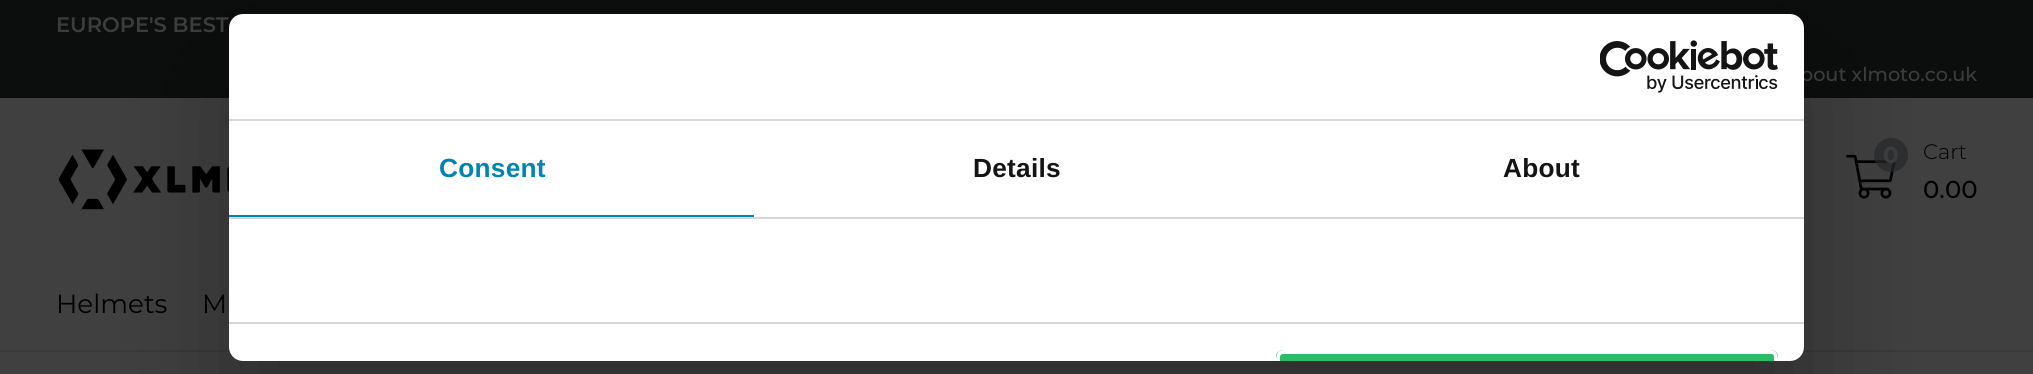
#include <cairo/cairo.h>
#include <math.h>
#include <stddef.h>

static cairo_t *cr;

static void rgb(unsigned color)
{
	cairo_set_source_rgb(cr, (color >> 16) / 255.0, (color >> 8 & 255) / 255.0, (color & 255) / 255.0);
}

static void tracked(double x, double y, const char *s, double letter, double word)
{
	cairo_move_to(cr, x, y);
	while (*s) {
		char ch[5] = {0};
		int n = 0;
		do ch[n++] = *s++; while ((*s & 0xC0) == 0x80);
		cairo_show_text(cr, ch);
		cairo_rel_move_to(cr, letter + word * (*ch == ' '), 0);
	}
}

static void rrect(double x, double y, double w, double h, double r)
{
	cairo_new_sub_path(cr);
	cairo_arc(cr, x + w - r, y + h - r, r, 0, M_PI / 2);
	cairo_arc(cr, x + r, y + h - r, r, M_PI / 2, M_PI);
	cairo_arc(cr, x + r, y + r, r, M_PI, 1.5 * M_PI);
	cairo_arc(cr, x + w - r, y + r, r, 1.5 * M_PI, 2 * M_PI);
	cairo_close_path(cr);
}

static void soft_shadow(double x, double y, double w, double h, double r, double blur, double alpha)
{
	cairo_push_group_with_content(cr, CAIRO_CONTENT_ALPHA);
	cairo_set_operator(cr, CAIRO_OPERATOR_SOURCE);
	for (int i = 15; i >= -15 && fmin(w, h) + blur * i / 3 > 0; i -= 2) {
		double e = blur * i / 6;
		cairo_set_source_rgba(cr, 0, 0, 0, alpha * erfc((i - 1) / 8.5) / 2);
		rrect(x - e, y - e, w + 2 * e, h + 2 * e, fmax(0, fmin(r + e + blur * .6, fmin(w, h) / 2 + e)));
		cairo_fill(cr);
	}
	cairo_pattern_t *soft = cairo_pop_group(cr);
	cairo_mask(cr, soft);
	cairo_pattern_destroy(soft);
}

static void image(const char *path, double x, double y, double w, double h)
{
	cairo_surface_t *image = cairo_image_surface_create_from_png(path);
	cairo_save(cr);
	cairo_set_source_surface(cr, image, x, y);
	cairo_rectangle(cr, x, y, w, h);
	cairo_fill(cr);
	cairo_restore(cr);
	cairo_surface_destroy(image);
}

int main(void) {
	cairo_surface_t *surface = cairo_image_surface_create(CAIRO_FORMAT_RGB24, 2033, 374);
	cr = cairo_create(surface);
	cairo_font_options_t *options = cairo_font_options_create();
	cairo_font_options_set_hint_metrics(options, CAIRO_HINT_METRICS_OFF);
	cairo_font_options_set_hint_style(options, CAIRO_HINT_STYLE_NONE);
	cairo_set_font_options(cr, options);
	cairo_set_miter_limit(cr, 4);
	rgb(0x404040);
	cairo_paint(cr);
	rgb(0x393939);
	cairo_rectangle(cr, 0, 350, 2033, 2);
	cairo_fill(cr);
	rgb(0x0c0e0e);
	cairo_rectangle(cr, 0, 0, 2033, 98);
	cairo_fill(cr);
	image("img/1.png", 58, 149, 171, 61);
	image("img/2.png", 1846, 154, 50, 45);
	cairo_set_source_rgba(cr, 0.149, 0.157, 0.165, 0.7);
	cairo_arc(cr, 1891, 155, 17, 0, 2 * M_PI);
	cairo_fill(cr);
	rgb(0x000000);
	soft_shadow(229, 70, 1575, 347, 14, 59.5, 0.3);
	cairo_select_font_face(cr, "Montserrat SemiBold", CAIRO_FONT_SLANT_NORMAL, CAIRO_FONT_WEIGHT_NORMAL);
	cairo_set_font_size(cr, 21);
	rgb(0x3c3c3d);
	cairo_move_to(cr, 56, 32);
	cairo_show_text(cr, "EUROPE'S BEST");
	cairo_select_font_face(cr, "Montserrat Medium", CAIRO_FONT_SLANT_NORMAL, CAIRO_FONT_WEIGHT_NORMAL);
	cairo_set_font_size(cr, 19.25);
	cairo_move_to(cr, 1800, 81);
	cairo_show_text(cr, "bout xlmoto.co.uk");
	cairo_select_font_face(cr, "Montserrat", CAIRO_FONT_SLANT_NORMAL, CAIRO_FONT_WEIGHT_BOLD);
	cairo_set_font_size(cr, 23);
	cairo_move_to(cr, 1883, 163);
	cairo_show_text(cr, "0");
	cairo_select_font_face(cr, "Montserrat Light", CAIRO_FONT_SLANT_NORMAL, CAIRO_FONT_WEIGHT_NORMAL);
	cairo_set_font_size(cr, 21);
	rgb(0x000000);
	cairo_move_to(cr, 1923, 159);
	cairo_show_text(cr, "Cart");
	cairo_select_font_face(cr, "Montserrat Medium", CAIRO_FONT_SLANT_NORMAL, CAIRO_FONT_WEIGHT_NORMAL);
	cairo_set_font_size(cr, 24.5);
	cairo_move_to(cr, 1923, 198);
	cairo_show_text(cr, "0.00");
	cairo_select_font_face(cr, "Montserrat", CAIRO_FONT_SLANT_NORMAL, CAIRO_FONT_WEIGHT_NORMAL);
	cairo_set_font_size(cr, 26.25);
	cairo_move_to(cr, 56, 313);
	cairo_show_text(cr, "Helmets");
	cairo_move_to(cr, 202, 313);
	cairo_show_text(cr, "M");
	rgb(0xffffff);
	rrect(229, 14, 1575, 347, 14);
	cairo_fill(cr);
	rgb(0xd6d6d6);
	cairo_rectangle(cr, 229, 119, 1575, 2);
	cairo_fill(cr);
	image("img/3.png", 1600, 40, 178, 53);
	cairo_rectangle(cr, 229, 217, 1575, 2);
	cairo_fill(cr);
	rgb(0x0084b4);
	cairo_rectangle(cr, 229, 215, 525, 2);
	cairo_fill(cr);
	cairo_select_font_face(cr, "Liberation Sans", CAIRO_FONT_SLANT_NORMAL, CAIRO_FONT_WEIGHT_BOLD);
	tracked(439, 177, "Consent", 0.25, 0);
	rgb(0x141414);
	tracked(973, 177, "Details", 0.25, 0);
	tracked(1503, 177, "About", 0.25, 0);
	rgb(0xd6d6d6);
	cairo_rectangle(cr, 229, 322, 1575, 2);
	cairo_fill(cr);
	rgb(0x2bbc68);
	cairo_new_path(cr);
	cairo_move_to(cr, 1283, 350);
	cairo_line_to(cr, 1771, 350);
	cairo_curve_to(cr, 1775, 350, 1778, 353, 1778, 357);
	cairo_line_to(cr, 1778, 361);
	cairo_line_to(cr, 1276, 361);
	cairo_line_to(cr, 1276, 357);
	cairo_curve_to(cr, 1276, 353, 1279, 350, 1283, 350);
	cairo_close_path(cr);
	cairo_fill(cr);
	rgb(0xffffff);
	cairo_new_path(cr);
	cairo_move_to(cr, 1283, 350);
	cairo_curve_to(cr, 1277, 350, 1276, 356, 1276, 361);
	cairo_line_to(cr, 1280, 361);
	cairo_curve_to(cr, 1280, 359, 1279, 354, 1283, 354);
	cairo_line_to(cr, 1772, 354);
	cairo_curve_to(cr, 1775, 355, 1774, 359, 1774, 361);
	cairo_line_to(cr, 1778, 361);
	cairo_curve_to(cr, 1778, 356, 1777, 350, 1771, 350);
	cairo_close_path(cr);
	cairo_fill(cr);
	cairo_surface_write_to_png(surface, "page.png");
	cairo_font_options_destroy(options);
	cairo_destroy(cr);
	cairo_surface_destroy(surface);
	return 0;
}
